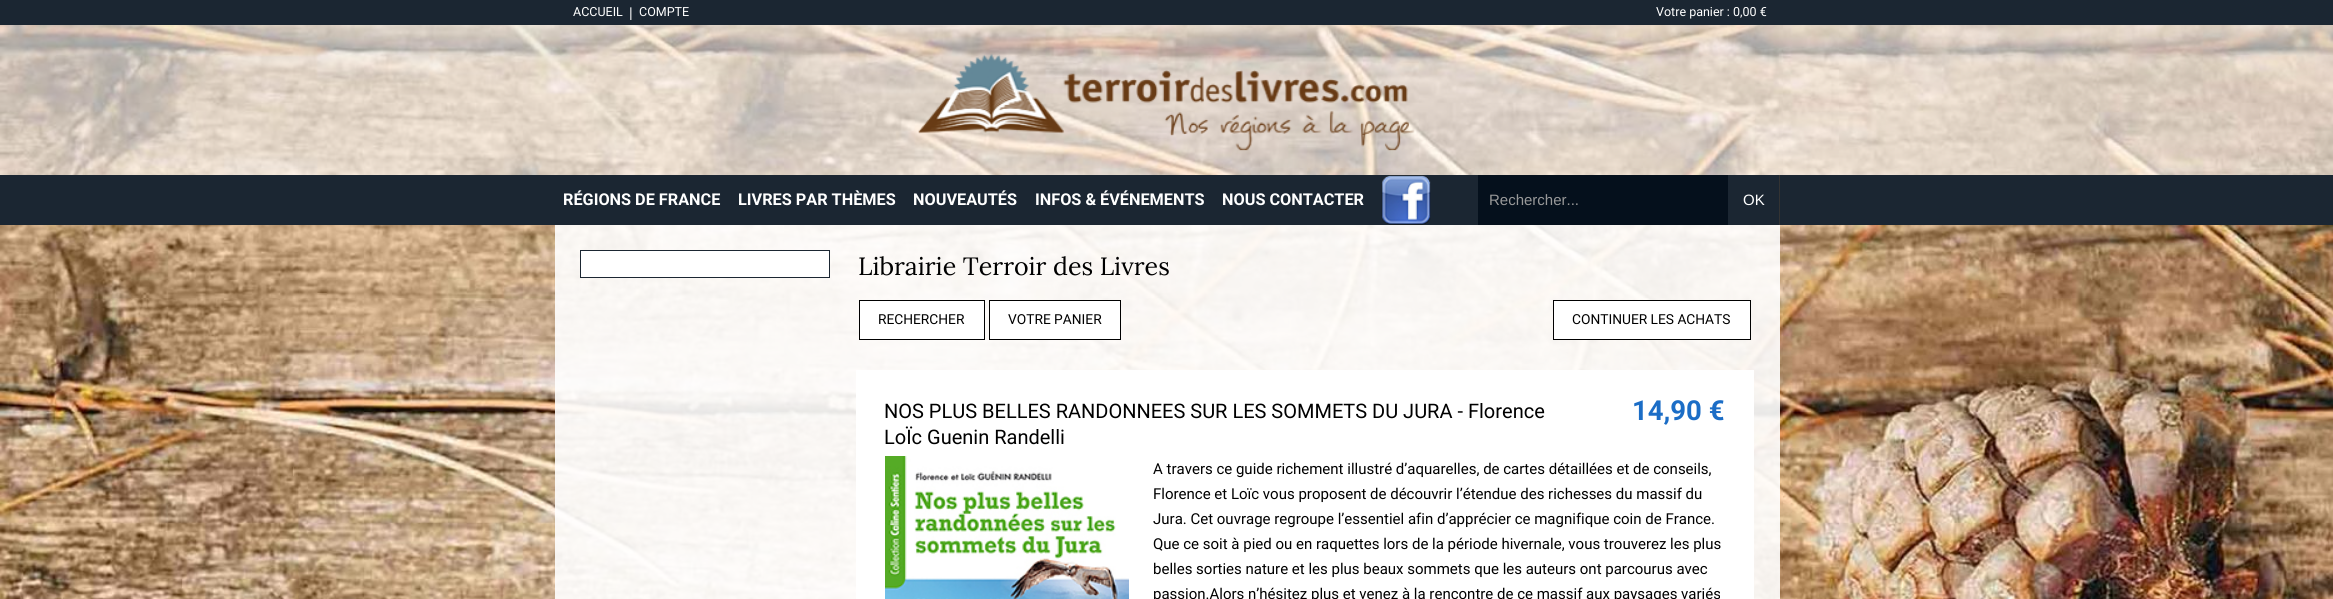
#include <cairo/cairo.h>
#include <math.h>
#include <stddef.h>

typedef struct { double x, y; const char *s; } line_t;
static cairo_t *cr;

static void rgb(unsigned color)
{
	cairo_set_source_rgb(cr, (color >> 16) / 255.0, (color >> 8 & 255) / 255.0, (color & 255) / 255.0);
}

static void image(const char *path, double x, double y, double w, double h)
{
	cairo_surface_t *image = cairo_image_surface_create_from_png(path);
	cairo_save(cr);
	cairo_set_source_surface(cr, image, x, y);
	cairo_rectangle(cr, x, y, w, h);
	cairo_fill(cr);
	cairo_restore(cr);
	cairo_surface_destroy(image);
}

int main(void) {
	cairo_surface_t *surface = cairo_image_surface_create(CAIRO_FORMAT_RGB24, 2333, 599);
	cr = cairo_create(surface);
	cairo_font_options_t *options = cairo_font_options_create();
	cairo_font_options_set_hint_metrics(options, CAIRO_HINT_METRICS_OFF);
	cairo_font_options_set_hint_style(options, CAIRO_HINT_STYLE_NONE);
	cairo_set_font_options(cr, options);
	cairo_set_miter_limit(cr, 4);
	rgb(0xffffff);
	cairo_paint(cr);
	image("img/1.png", 0, 25, 2333, 574);
	cairo_set_source_rgba(cr, 1, 1, 1, 0.6);
	cairo_rectangle(cr, 0, 25, 2333, 150);
	cairo_fill(cr);
	rgb(0x1b2632);
	cairo_rectangle(cr, 0, 175, 2333, 50);
	cairo_fill(cr);
	cairo_rectangle(cr, 0, 0, 2333, 25);
	cairo_fill(cr);
	image("img/2.png", 918, 53, 497, 98);
	image("img/3.png", 1381, 175, 50, 50);
	rgb(0x05101c);
	cairo_rectangle(cr, 1478, 175, 250, 50);
	cairo_fill(cr);
	rgb(0x333333);
	cairo_rectangle(cr, 1779, 175, 1, 50);
	cairo_fill(cr);
	cairo_set_source_rgba(cr, 1, 1, 1, 0.9);
	cairo_rectangle(cr, 555, 225, 1225, 374);
	cairo_fill(cr);
	rgb(0xffffff);
	cairo_rectangle(cr, 580.5, 250.5, 249, 27);
	cairo_fill_preserve(cr);
	rgb(0x1b2632);
	cairo_set_line_width(cr, 1);
	cairo_stroke(cr);
	rgb(0xffffff);
	cairo_rectangle(cr, 859.5, 300.5, 125, 39);
	cairo_fill_preserve(cr);
	rgb(0x000000);
	cairo_stroke(cr);
	rgb(0xffffff);
	cairo_rectangle(cr, 989.5, 300.5, 131, 39);
	cairo_fill_preserve(cr);
	rgb(0x000000);
	cairo_stroke(cr);
	rgb(0xffffff);
	cairo_rectangle(cr, 1553.5, 300.5, 197, 39);
	cairo_fill_preserve(cr);
	rgb(0x000000);
	cairo_stroke(cr);
	rgb(0xffffff);
	cairo_rectangle(cr, 856, 370, 898, 229);
	cairo_fill(cr);
	image("img/4.png", 885, 456, 244, 143);
	cairo_select_font_face(cr, "Roboto", CAIRO_FONT_SLANT_NORMAL, CAIRO_FONT_WEIGHT_NORMAL);
	cairo_set_font_size(cr, 12.5);
	cairo_move_to(cr, 573, 16);
	cairo_show_text(cr, "ACCUEIL");
	cairo_set_font_size(cr, 15);
	cairo_move_to(cr, 629, 18);
	cairo_show_text(cr, "|");
	cairo_set_font_size(cr, 12.5);
	cairo_move_to(cr, 639, 16);
	cairo_show_text(cr, "COMPTE");
	cairo_move_to(cr, 1656, 16);
	cairo_show_text(cr, "Votre panier : 0,00 €");
	cairo_select_font_face(cr, "Roboto", CAIRO_FONT_SLANT_NORMAL, CAIRO_FONT_WEIGHT_BOLD);
	cairo_set_font_size(cr, 16.25);
	{
		static const line_t items[] = {
			{563, 205, "RÉGIONS DE FRANCE"},
			{738, 205, "LIVRES PAR THÈMES"},
			{913, 205, "NOUVEAUTÉS"},
			{1035, 205, "INFOS & ÉVÉNEMENTS"},
			{1222, 205, "NOUS CONTACTER"},
		};
		for (size_t i = 0; i < sizeof items / sizeof *items; i++) {
			cairo_move_to(cr, items[i].x, items[i].y);
			cairo_show_text(cr, items[i].s);
		}
	}
	cairo_select_font_face(cr, "Liberation Sans", CAIRO_FONT_SLANT_NORMAL, CAIRO_FONT_WEIGHT_NORMAL);
	cairo_set_font_size(cr, 15);
	rgb(0x999999);
	cairo_move_to(cr, 1489, 205);
	cairo_show_text(cr, "Rechercher...");
	rgb(0xffffff);
	cairo_move_to(cr, 1743, 205);
	cairo_show_text(cr, "OK");
	cairo_select_font_face(cr, "Lora", CAIRO_FONT_SLANT_NORMAL, CAIRO_FONT_WEIGHT_NORMAL);
	cairo_set_font_size(cr, 25);
	rgb(0x000000);
	cairo_move_to(cr, 858, 275);
	cairo_show_text(cr, "Librairie Terroir des Livres");
	cairo_select_font_face(cr, "Roboto", CAIRO_FONT_SLANT_NORMAL, CAIRO_FONT_WEIGHT_NORMAL);
	cairo_set_font_size(cr, 13.75);
	{
		static const line_t items[] = {
			{878, 324, "RECHERCHER"},
			{1008, 324, "VOTRE PANIER"},
			{1572, 324, "CONTINUER LES ACHATS"},
		};
		for (size_t i = 0; i < sizeof items / sizeof *items; i++) {
			cairo_move_to(cr, items[i].x, items[i].y);
			cairo_show_text(cr, items[i].s);
		}
	}
	cairo_set_font_size(cr, 20);
	cairo_move_to(cr, 884, 418);
	cairo_show_text(cr, "NOS PLUS BELLES RANDONNEES SUR LES SOMMETS DU JURA - Florence");
	cairo_move_to(cr, 884, 444);
	cairo_show_text(cr, "LoÏc Guenin Randelli");
	cairo_select_font_face(cr, "Roboto", CAIRO_FONT_SLANT_NORMAL, CAIRO_FONT_WEIGHT_BOLD);
	cairo_set_font_size(cr, 27.5);
	rgb(0x1b6dc6);
	cairo_move_to(cr, 1632, 420);
	cairo_show_text(cr, "14,90 €");
	cairo_select_font_face(cr, "Roboto", CAIRO_FONT_SLANT_NORMAL, CAIRO_FONT_WEIGHT_NORMAL);
	cairo_set_font_size(cr, 15);
	rgb(0x000000);
	{
		static const line_t items[] = {
			{1153, 474, "A travers ce guide richement illustré d’aquarelles, de cartes détaillées et de conseils,"},
			{1153, 499, "Florence et Loïc vous proposent de découvrir l’étendue des richesses du massif du"},
			{1153, 524, "Jura. Cet ouvrage regroupe l’essentiel afin d’apprécier ce magnifique coin de France."},
			{1153, 549, "Que ce soit à pied ou en raquettes lors de la période hivernale, vous trouverez les plus"},
			{1153, 574, "belles sorties nature et les plus beaux sommets que les auteurs ont parcourus avec"},
			{1153, 599, "passion.Alors n’hésitez plus et venez à la rencontre de ce massif aux paysages variés"},
		};
		for (size_t i = 0; i < sizeof items / sizeof *items; i++) {
			cairo_move_to(cr, items[i].x, items[i].y);
			cairo_show_text(cr, items[i].s);
		}
	}
	cairo_surface_write_to_png(surface, "page.png");
	cairo_font_options_destroy(options);
	cairo_destroy(cr);
	cairo_surface_destroy(surface);
	return 0;
}
